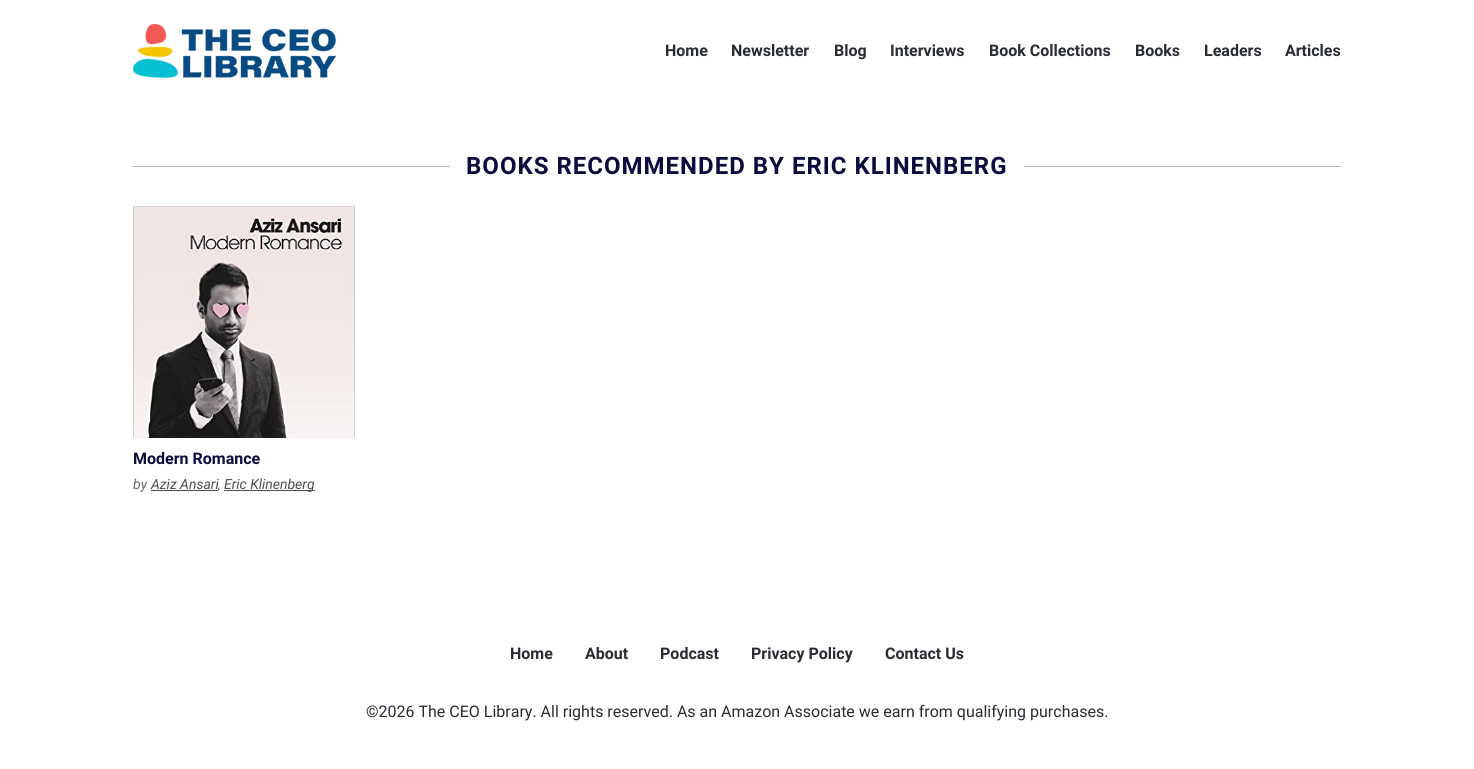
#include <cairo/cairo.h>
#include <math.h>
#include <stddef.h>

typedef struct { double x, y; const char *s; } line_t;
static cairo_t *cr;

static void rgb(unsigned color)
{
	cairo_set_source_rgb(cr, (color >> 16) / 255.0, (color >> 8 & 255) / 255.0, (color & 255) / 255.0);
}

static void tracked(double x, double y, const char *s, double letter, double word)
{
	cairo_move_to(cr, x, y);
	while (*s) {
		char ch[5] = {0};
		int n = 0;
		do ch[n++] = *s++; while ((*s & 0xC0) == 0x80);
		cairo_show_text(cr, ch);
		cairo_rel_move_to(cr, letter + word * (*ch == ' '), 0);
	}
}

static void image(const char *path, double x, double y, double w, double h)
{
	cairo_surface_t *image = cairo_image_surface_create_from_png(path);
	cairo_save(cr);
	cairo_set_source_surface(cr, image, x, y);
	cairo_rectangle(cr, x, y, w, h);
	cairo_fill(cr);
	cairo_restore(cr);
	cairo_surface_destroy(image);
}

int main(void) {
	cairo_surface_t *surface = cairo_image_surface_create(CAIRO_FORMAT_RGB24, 1474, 769);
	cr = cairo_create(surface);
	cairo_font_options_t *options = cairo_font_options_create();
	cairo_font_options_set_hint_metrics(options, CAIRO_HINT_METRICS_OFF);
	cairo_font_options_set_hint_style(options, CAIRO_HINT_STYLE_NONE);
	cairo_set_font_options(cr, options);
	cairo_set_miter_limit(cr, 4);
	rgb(0xffffff);
	cairo_paint(cr);
	image("img/1.png", 133, 24, 203, 54);
	rgb(0xb3b3b3);
	cairo_rectangle(cr, 133, 166, 1208, 1);
	cairo_fill(cr);
	rgb(0xffffff);
	cairo_rectangle(cr, 450, 166, 574, 1);
	cairo_fill(cr);
	image("img/2.png", 133, 206, 222, 232);
	rgb(0x4d4d4d);
	cairo_rectangle(cr, 151, 490, 67, 1);
	cairo_fill(cr);
	cairo_rectangle(cr, 224, 490, 91, 1);
	cairo_fill(cr);
	cairo_select_font_face(cr, "Roboto", CAIRO_FONT_SLANT_NORMAL, CAIRO_FONT_WEIGHT_BOLD);
	cairo_set_font_size(cr, 16);
	rgb(0x292c33);
	{
		static const line_t items[] = {
			{665, 56, "Home"},
			{731, 56, "Newsletter"},
			{834, 56, "Blog"},
			{890, 56, "Interviews"},
			{989, 56, "Book Collections"},
			{1135, 56, "Books"},
			{1204, 56, "Leaders"},
			{1285, 56, "Articles"},
		};
		for (size_t i = 0; i < sizeof items / sizeof *items; i++) {
			cairo_move_to(cr, items[i].x, items[i].y);
			cairo_show_text(cr, items[i].s);
		}
	}
	cairo_set_font_size(cr, 24);
	rgb(0x0c0b3e);
	tracked(466, 174, "BOOKS RECOMMENDED BY ERIC KLINENBERG", 1, 0);
	cairo_set_font_size(cr, 16);
	cairo_move_to(cr, 133, 464);
	cairo_show_text(cr, "Modern Romance");
	cairo_select_font_face(cr, "Roboto", CAIRO_FONT_SLANT_ITALIC, CAIRO_FONT_WEIGHT_NORMAL);
	cairo_set_font_size(cr, 14);
	rgb(0x696b70);
	cairo_move_to(cr, 133, 489);
	cairo_show_text(cr, "by");
	rgb(0x4d4d4d);
	cairo_move_to(cr, 151, 489);
	cairo_show_text(cr, "Aziz Ansari");
	cairo_move_to(cr, 224, 489);
	cairo_show_text(cr, "Eric Klinenberg");
	rgb(0x696b70);
	cairo_move_to(cr, 218, 489);
	cairo_show_text(cr, ",");
	cairo_select_font_face(cr, "Roboto", CAIRO_FONT_SLANT_NORMAL, CAIRO_FONT_WEIGHT_BOLD);
	cairo_set_font_size(cr, 16);
	rgb(0x292c33);
	{
		static const line_t items[] = {
			{510, 659, "Home"},
			{585, 659, "About"},
			{660, 659, "Podcast"},
			{751, 659, "Privacy Policy"},
			{885, 659, "Contact Us"},
		};
		for (size_t i = 0; i < sizeof items / sizeof *items; i++) {
			cairo_move_to(cr, items[i].x, items[i].y);
			cairo_show_text(cr, items[i].s);
		}
	}
	cairo_select_font_face(cr, "Roboto", CAIRO_FONT_SLANT_NORMAL, CAIRO_FONT_WEIGHT_NORMAL);
	cairo_move_to(cr, 366, 717);
	cairo_show_text(cr, "©2026 The CEO Library. All rights reserved. As an Amazon Associate we earn from qualifying purchases.");
	cairo_surface_write_to_png(surface, "page.png");
	cairo_font_options_destroy(options);
	cairo_destroy(cr);
	cairo_surface_destroy(surface);
	return 0;
}
